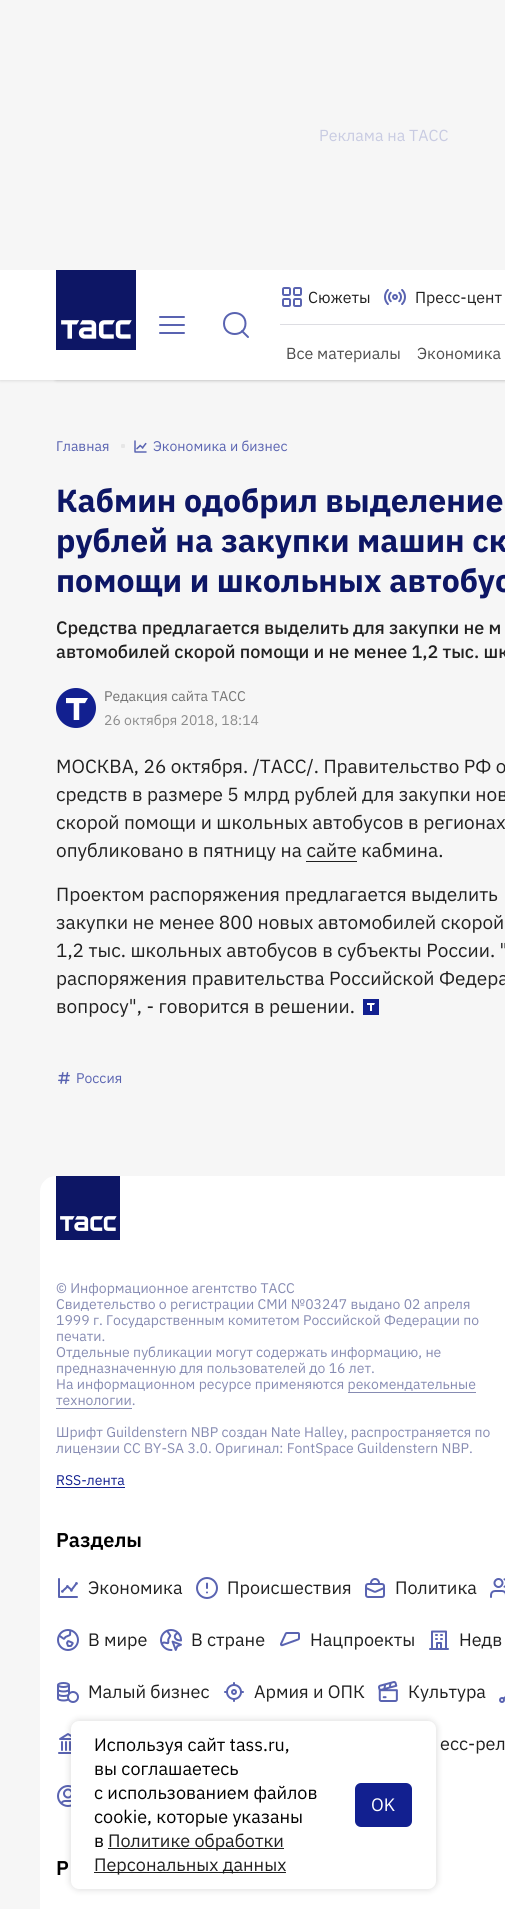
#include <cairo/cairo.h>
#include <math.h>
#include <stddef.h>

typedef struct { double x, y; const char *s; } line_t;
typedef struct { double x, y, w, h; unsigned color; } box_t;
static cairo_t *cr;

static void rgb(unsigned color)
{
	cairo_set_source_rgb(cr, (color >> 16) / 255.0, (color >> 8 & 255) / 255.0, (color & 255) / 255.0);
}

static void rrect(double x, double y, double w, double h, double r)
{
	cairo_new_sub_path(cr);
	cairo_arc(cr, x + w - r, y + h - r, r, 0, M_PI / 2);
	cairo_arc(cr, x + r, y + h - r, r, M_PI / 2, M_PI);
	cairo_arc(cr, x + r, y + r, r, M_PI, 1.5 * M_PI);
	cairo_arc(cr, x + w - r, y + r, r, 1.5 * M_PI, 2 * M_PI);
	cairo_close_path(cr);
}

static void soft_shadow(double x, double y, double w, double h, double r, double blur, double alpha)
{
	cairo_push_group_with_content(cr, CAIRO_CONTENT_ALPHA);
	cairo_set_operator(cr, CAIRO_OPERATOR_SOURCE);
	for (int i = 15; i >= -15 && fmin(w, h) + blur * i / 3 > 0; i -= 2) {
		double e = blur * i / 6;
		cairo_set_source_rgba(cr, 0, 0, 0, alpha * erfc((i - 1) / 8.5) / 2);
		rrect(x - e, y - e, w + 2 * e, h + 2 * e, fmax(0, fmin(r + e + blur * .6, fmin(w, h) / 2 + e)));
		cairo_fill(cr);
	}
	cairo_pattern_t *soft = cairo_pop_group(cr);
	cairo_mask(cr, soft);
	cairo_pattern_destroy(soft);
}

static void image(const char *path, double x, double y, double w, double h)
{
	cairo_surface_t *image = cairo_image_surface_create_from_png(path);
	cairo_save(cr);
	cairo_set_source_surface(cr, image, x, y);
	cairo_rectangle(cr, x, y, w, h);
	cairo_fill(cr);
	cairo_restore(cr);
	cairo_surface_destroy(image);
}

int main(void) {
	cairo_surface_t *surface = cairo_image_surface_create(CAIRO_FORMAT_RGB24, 505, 1909);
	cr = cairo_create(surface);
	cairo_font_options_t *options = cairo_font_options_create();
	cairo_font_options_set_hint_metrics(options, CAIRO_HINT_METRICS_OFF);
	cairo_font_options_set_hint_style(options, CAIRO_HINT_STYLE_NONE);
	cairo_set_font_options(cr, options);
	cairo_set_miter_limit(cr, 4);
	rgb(0xf6f6f6);
	cairo_paint(cr);
	rgb(0x000000);
	soft_shadow(56, 270, 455, 110, 0, 2, 0.16);
	soft_shadow(0, 270, 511, 110, 0, 2, 0.16);
	{
		static const box_t items[] = {
			{0, 266, 505, 4, 0xf6f6f6},
			{0, 270, 505, 110, 0xffffff},
			{56, 270, 80, 80, 0x0d1665},
		};
		for (size_t i = 0; i < sizeof items / sizeof *items; i++) {
			rgb(items[i].color);
			cairo_rectangle(cr, items[i].x, items[i].y, items[i].w, items[i].h);
			cairo_fill(cr);
		}
	}
	image("img/1.png", 61, 320, 71, 19);
	rgb(0xdddde2);
	cairo_rectangle(cr, 280, 324, 225, 1);
	cairo_fill(cr);
	image("img/2.png", 282, 287, 20, 20);
	image("img/3.png", 384, 289, 22, 16);
	image("img/4.png", 159, 316, 26, 18);
	cairo_new_path(cr);
	cairo_move_to(cr, 248, 337);
	cairo_line_to(cr, 242, 331);
	cairo_move_to(cr, 245.5, 323.5);
	cairo_curve_to(cr, 245.5, 337.5, 224, 337.5, 224, 323.5);
	cairo_curve_to(cr, 224, 309.5, 245.5, 309.5, 245.5, 323.5);
	rgb(0x5963b1);
	cairo_set_line_cap(cr, CAIRO_LINE_CAP_ROUND);
	cairo_set_line_join(cr, CAIRO_LINE_JOIN_ROUND);
	cairo_stroke(cr);
	rgb(0xe6e6e6);
	rrect(121, 444, 4, 4, 1);
	cairo_fill(cr);
	image("img/5.png", 134, 440, 13, 13);
	rgb(0x122090);
	cairo_arc(cr, 76, 708, 20, 0, 2 * M_PI);
	cairo_fill(cr);
	image("img/6.png", 66, 698, 22, 22);
	rgb(0x202020);
	cairo_rectangle(cr, 306, 861, 51, 1);
	cairo_fill(cr);
	image("img/7.png", 363, 999, 16, 16);
	image("img/8.png", 58, 1072, 12, 12);
	rgb(0xffffff);
	cairo_new_path(cr);
	cairo_move_to(cr, 56, 1176);
	cairo_line_to(cr, 505, 1176);
	cairo_curve_to(cr, 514, 1176, 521, 1183, 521, 1192);
	cairo_line_to(cr, 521, 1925);
	cairo_line_to(cr, 40, 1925);
	cairo_line_to(cr, 40, 1192);
	cairo_curve_to(cr, 40, 1183, 47, 1176, 56, 1176);
	cairo_close_path(cr);
	cairo_fill(cr);
	image("img/9.png", 56, 1176, 64, 64);
	cairo_save(cr);
	cairo_rectangle(cr, 348, 1375, 128, 18);
	cairo_clip(cr);
	rgb(0x868bb2);
	cairo_set_fill_rule(cr, CAIRO_FILL_RULE_EVEN_ODD);
	cairo_new_path(cr);
	cairo_move_to(cr, 249, 1276);
	cairo_line_to(cr, 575, 1276);
	cairo_line_to(cr, 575, 1492);
	cairo_line_to(cr, 249, 1492);
	cairo_close_path(cr);
	cairo_move_to(cr, 348, 1372);
	cairo_line_to(cr, 476, 1372);
	cairo_curve_to(cr, 477, 1372, 477, 1372, 477, 1373);
	cairo_line_to(cr, 477, 1391);
	cairo_curve_to(cr, 477, 1392, 477, 1392, 476, 1392);
	cairo_line_to(cr, 348, 1392);
	cairo_curve_to(cr, 347, 1392, 347, 1392, 347, 1391);
	cairo_line_to(cr, 347, 1373);
	cairo_curve_to(cr, 347, 1372, 347, 1372, 348, 1372);
	cairo_close_path(cr);
	cairo_fill(cr);
	cairo_restore(cr);
	cairo_save(cr);
	cairo_rectangle(cr, 56, 1391, 76, 18);
	cairo_clip(cr);
	rgb(0x868bb2);
	cairo_set_fill_rule(cr, CAIRO_FILL_RULE_EVEN_ODD);
	cairo_new_path(cr);
	cairo_move_to(cr, -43, 1292);
	cairo_line_to(cr, 231, 1292);
	cairo_line_to(cr, 231, 1508);
	cairo_line_to(cr, -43, 1508);
	cairo_close_path(cr);
	cairo_move_to(cr, 56, 1388);
	cairo_line_to(cr, 132, 1388);
	cairo_curve_to(cr, 133, 1388, 133, 1388, 133, 1389);
	cairo_line_to(cr, 133, 1407);
	cairo_curve_to(cr, 133, 1408, 133, 1408, 132, 1408);
	cairo_line_to(cr, 56, 1408);
	cairo_curve_to(cr, 55, 1408, 55, 1408, 55, 1407);
	cairo_line_to(cr, 55, 1389);
	cairo_curve_to(cr, 55, 1388, 55, 1388, 56, 1388);
	cairo_close_path(cr);
	cairo_fill(cr);
	cairo_restore(cr);
	cairo_save(cr);
	cairo_rectangle(cr, 56, 1472, 69, 16);
	cairo_clip(cr);
	rgb(0x122090);
	cairo_set_fill_rule(cr, CAIRO_FILL_RULE_EVEN_ODD);
	cairo_new_path(cr);
	cairo_move_to(cr, -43, 1373);
	cairo_line_to(cr, 224, 1373);
	cairo_line_to(cr, 224, 1587);
	cairo_line_to(cr, -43, 1587);
	cairo_close_path(cr);
	cairo_move_to(cr, 56, 1469);
	cairo_line_to(cr, 125, 1469);
	cairo_curve_to(cr, 126, 1469, 126, 1469, 126, 1470);
	cairo_line_to(cr, 126, 1486);
	cairo_curve_to(cr, 126, 1487, 126, 1487, 125, 1487);
	cairo_line_to(cr, 56, 1487);
	cairo_curve_to(cr, 55, 1487, 55, 1487, 55, 1486);
	cairo_line_to(cr, 55, 1470);
	cairo_curve_to(cr, 55, 1469, 55, 1469, 56, 1469);
	cairo_close_path(cr);
	cairo_fill(cr);
	cairo_restore(cr);
	image("img/10.png", 58, 1578, 20, 20);
	image("img/11.png", 196, 1577, 22, 22);
	image("img/12.png", 365, 1578, 20, 20);
	image("img/13.png", 490, 1578, 15, 20);
	image("img/14.png", 57, 1629, 22, 22);
	image("img/15.png", 160, 1629, 22, 22);
	image("img/16.png", 280, 1632, 20, 15);
	image("img/17.png", 429, 1630, 20, 20);
	image("img/18.png", 57, 1682, 22, 21);
	image("img/19.png", 224, 1682, 20, 20);
	image("img/20.png", 378, 1681, 20, 21);
	image("img/21.png", 499, 1696, 6, 7);
	image("img/22.png", 58, 1733, 13, 21);
	image("img/23.png", 57, 1785, 14, 22);
	rgb(0x000000);
	soft_shadow(71, 1721, 365, 168, 8, 4, 0.16);
	rgb(0xffffff);
	rrect(71, 1721, 365, 168, 8);
	cairo_fill(cr);
	rgb(0x202020);
	cairo_rectangle(cr, 108, 1848, 176, 1);
	cairo_fill(cr);
	cairo_rectangle(cr, 94, 1872, 192, 1);
	cairo_fill(cr);
	rgb(0x122090);
	rrect(355, 1783, 57, 44, 6);
	cairo_fill(cr);
	cairo_select_font_face(cr, "IBM Plex Sans", CAIRO_FONT_SLANT_NORMAL, CAIRO_FONT_WEIGHT_NORMAL);
	cairo_set_font_size(cr, 16);
	rgb(0xc8cbe2);
	cairo_move_to(cr, 319, 141);
	cairo_show_text(cr, "Реклама на ТАСС");
	rgb(0x202020);
	cairo_move_to(cr, 308, 303);
	cairo_show_text(cr, "Сюжеты");
	cairo_move_to(cr, 415, 303);
	cairo_show_text(cr, "Пресс-цент");
	rgb(0x4d4d4d);
	cairo_move_to(cr, 286, 359);
	cairo_show_text(cr, "Все материалы");
	cairo_move_to(cr, 417, 359);
	cairo_show_text(cr, "Экономика");
	cairo_set_font_size(cr, 14);
	rgb(0x5963b1);
	cairo_move_to(cr, 56, 451);
	cairo_show_text(cr, "Главная");
	cairo_move_to(cr, 153, 451);
	cairo_show_text(cr, "Экономика и бизнес");
	cairo_select_font_face(cr, "IBM Plex Sans", CAIRO_FONT_SLANT_NORMAL, CAIRO_FONT_WEIGHT_BOLD);
	cairo_set_font_size(cr, 32);
	rgb(0x0d1665);
	{
		static const line_t items[] = {
			{56, 512, "Кабмин одобрил выделение"},
			{56, 552, "рублей на закупки машин ск"},
			{56, 592, "помощи и школьных автобус"},
		};
		for (size_t i = 0; i < sizeof items / sizeof *items; i++) {
			cairo_move_to(cr, items[i].x, items[i].y);
			cairo_show_text(cr, items[i].s);
		}
	}
	cairo_select_font_face(cr, "IBM Plex Sans Medium", CAIRO_FONT_SLANT_NORMAL, CAIRO_FONT_WEIGHT_NORMAL);
	cairo_set_font_size(cr, 18);
	rgb(0x202020);
	cairo_move_to(cr, 56, 634);
	cairo_show_text(cr, "Средства предлагается выделить для закупки не м");
	cairo_move_to(cr, 56, 658);
	cairo_show_text(cr, "автомобилей скорой помощи и не менее 1,2 тыс. шк");
	cairo_select_font_face(cr, "IBM Plex Sans", CAIRO_FONT_SLANT_NORMAL, CAIRO_FONT_WEIGHT_NORMAL);
	cairo_set_font_size(cr, 14);
	rgb(0x727272);
	cairo_move_to(cr, 104, 701);
	cairo_show_text(cr, "Редакция сайта ТАСС");
	rgb(0x8b8b8b);
	cairo_move_to(cr, 104, 725);
	cairo_show_text(cr, "26 октября 2018, 18:14");
	cairo_set_font_size(cr, 19);
	rgb(0x202020);
	{
		static const line_t items[] = {
			{56, 773, "МОСКВА, 26 октября. /ТАСС/. Правительство РФ о"},
			{56, 801, "средств в размере 5 млрд рублей для закупки нов"},
			{56, 829, "скорой помощи и школьных автобусов в регионах"},
			{56, 857, "опубликовано в пятницу на сайте кабмина."},
			{56, 901, "Проектом распоряжения предлагается выделить"},
			{56, 929, "закупки не менее 800 новых автомобилей скорой"},
			{56, 957, "1,2 тыс. школьных автобусов в субъекты России. \""},
			{56, 985, "распоряжения правительства Российской Федера"},
			{56, 1013, "вопросу\", - говорится в решении."},
		};
		for (size_t i = 0; i < sizeof items / sizeof *items; i++) {
			cairo_move_to(cr, items[i].x, items[i].y);
			cairo_show_text(cr, items[i].s);
		}
	}
	cairo_set_font_size(cr, 14);
	rgb(0x5963b1);
	cairo_move_to(cr, 76, 1083);
	cairo_show_text(cr, "Россия");
	rgb(0x868bb2);
	{
		static const line_t items[] = {
			{56, 1293, "© Информационное агентство ТАСС"},
			{56, 1309, "Свидетельство о регистрации СМИ №03247 выдано 02 апреля"},
			{56, 1325, "1999 г. Государственным комитетом Российской Федерации по"},
			{56, 1341, "печати."},
			{56, 1357, "Отдельные публикации могут содержать информацию, не"},
			{56, 1373, "предназначенную для пользователей до 16 лет."},
			{56, 1389, "На информационном ресурсе применяются рекомендательные"},
			{56, 1405, "технологии."},
			{56, 1437, "Шрифт Guildenstern NBP создан Nate Halley, распространяется по"},
			{56, 1453, "лицензии CC BY-SA 3.0. Оригинал: FontSpace Guildenstern NBP."},
		};
		for (size_t i = 0; i < sizeof items / sizeof *items; i++) {
			cairo_move_to(cr, items[i].x, items[i].y);
			cairo_show_text(cr, items[i].s);
		}
	}
	rgb(0x122090);
	cairo_move_to(cr, 56, 1485);
	cairo_show_text(cr, "RSS-лента");
	cairo_select_font_face(cr, "IBM Plex Sans SemiBold", CAIRO_FONT_SLANT_NORMAL, CAIRO_FONT_WEIGHT_NORMAL);
	cairo_set_font_size(cr, 20);
	rgb(0x000000);
	cairo_move_to(cr, 56, 1547);
	cairo_show_text(cr, "Разделы");
	cairo_select_font_face(cr, "IBM Plex Sans", CAIRO_FONT_SLANT_NORMAL, CAIRO_FONT_WEIGHT_NORMAL);
	cairo_set_font_size(cr, 18);
	rgb(0x202020);
	{
		static const line_t items[] = {
			{88, 1594, "Экономика"},
			{227, 1594, "Происшествия"},
			{395, 1594, "Политика"},
			{88, 1646, "В мире"},
			{191, 1646, "В стране"},
			{310, 1646, "Нацпроекты"},
			{459, 1646, "Недв"},
			{88, 1698, "Малый бизнес"},
			{254, 1698, "Армия и ОПК"},
			{408, 1698, "Культура"},
			{440, 1750, "есс-рел"},
		};
		for (size_t i = 0; i < sizeof items / sizeof *items; i++) {
			cairo_move_to(cr, items[i].x, items[i].y);
			cairo_show_text(cr, items[i].s);
		}
	}
	cairo_select_font_face(cr, "IBM Plex Sans SemiBold", CAIRO_FONT_SLANT_NORMAL, CAIRO_FONT_WEIGHT_NORMAL);
	cairo_set_font_size(cr, 20);
	rgb(0x000000);
	cairo_move_to(cr, 56, 1875);
	cairo_show_text(cr, "Р");
	cairo_select_font_face(cr, "IBM Plex Sans", CAIRO_FONT_SLANT_NORMAL, CAIRO_FONT_WEIGHT_NORMAL);
	cairo_set_font_size(cr, 18);
	{
		static const line_t items[] = {
			{94, 1751, "Используя сайт tass.ru,"},
			{94, 1775, "вы соглашаетесь"},
			{94, 1799, "с использованием файлов"},
			{94, 1823, "cookie, которые указаны"},
			{94, 1847, "в"},
		};
		for (size_t i = 0; i < sizeof items / sizeof *items; i++) {
			cairo_move_to(cr, items[i].x, items[i].y);
			cairo_show_text(cr, items[i].s);
		}
	}
	rgb(0x202020);
	cairo_move_to(cr, 108, 1847);
	cairo_show_text(cr, "Политике обработки");
	cairo_move_to(cr, 94, 1871);
	cairo_show_text(cr, "Персональных данных");
	rgb(0xffffff);
	cairo_move_to(cr, 371, 1811);
	cairo_show_text(cr, "OK");
	cairo_surface_write_to_png(surface, "page.png");
	cairo_font_options_destroy(options);
	cairo_destroy(cr);
	cairo_surface_destroy(surface);
	return 0;
}
